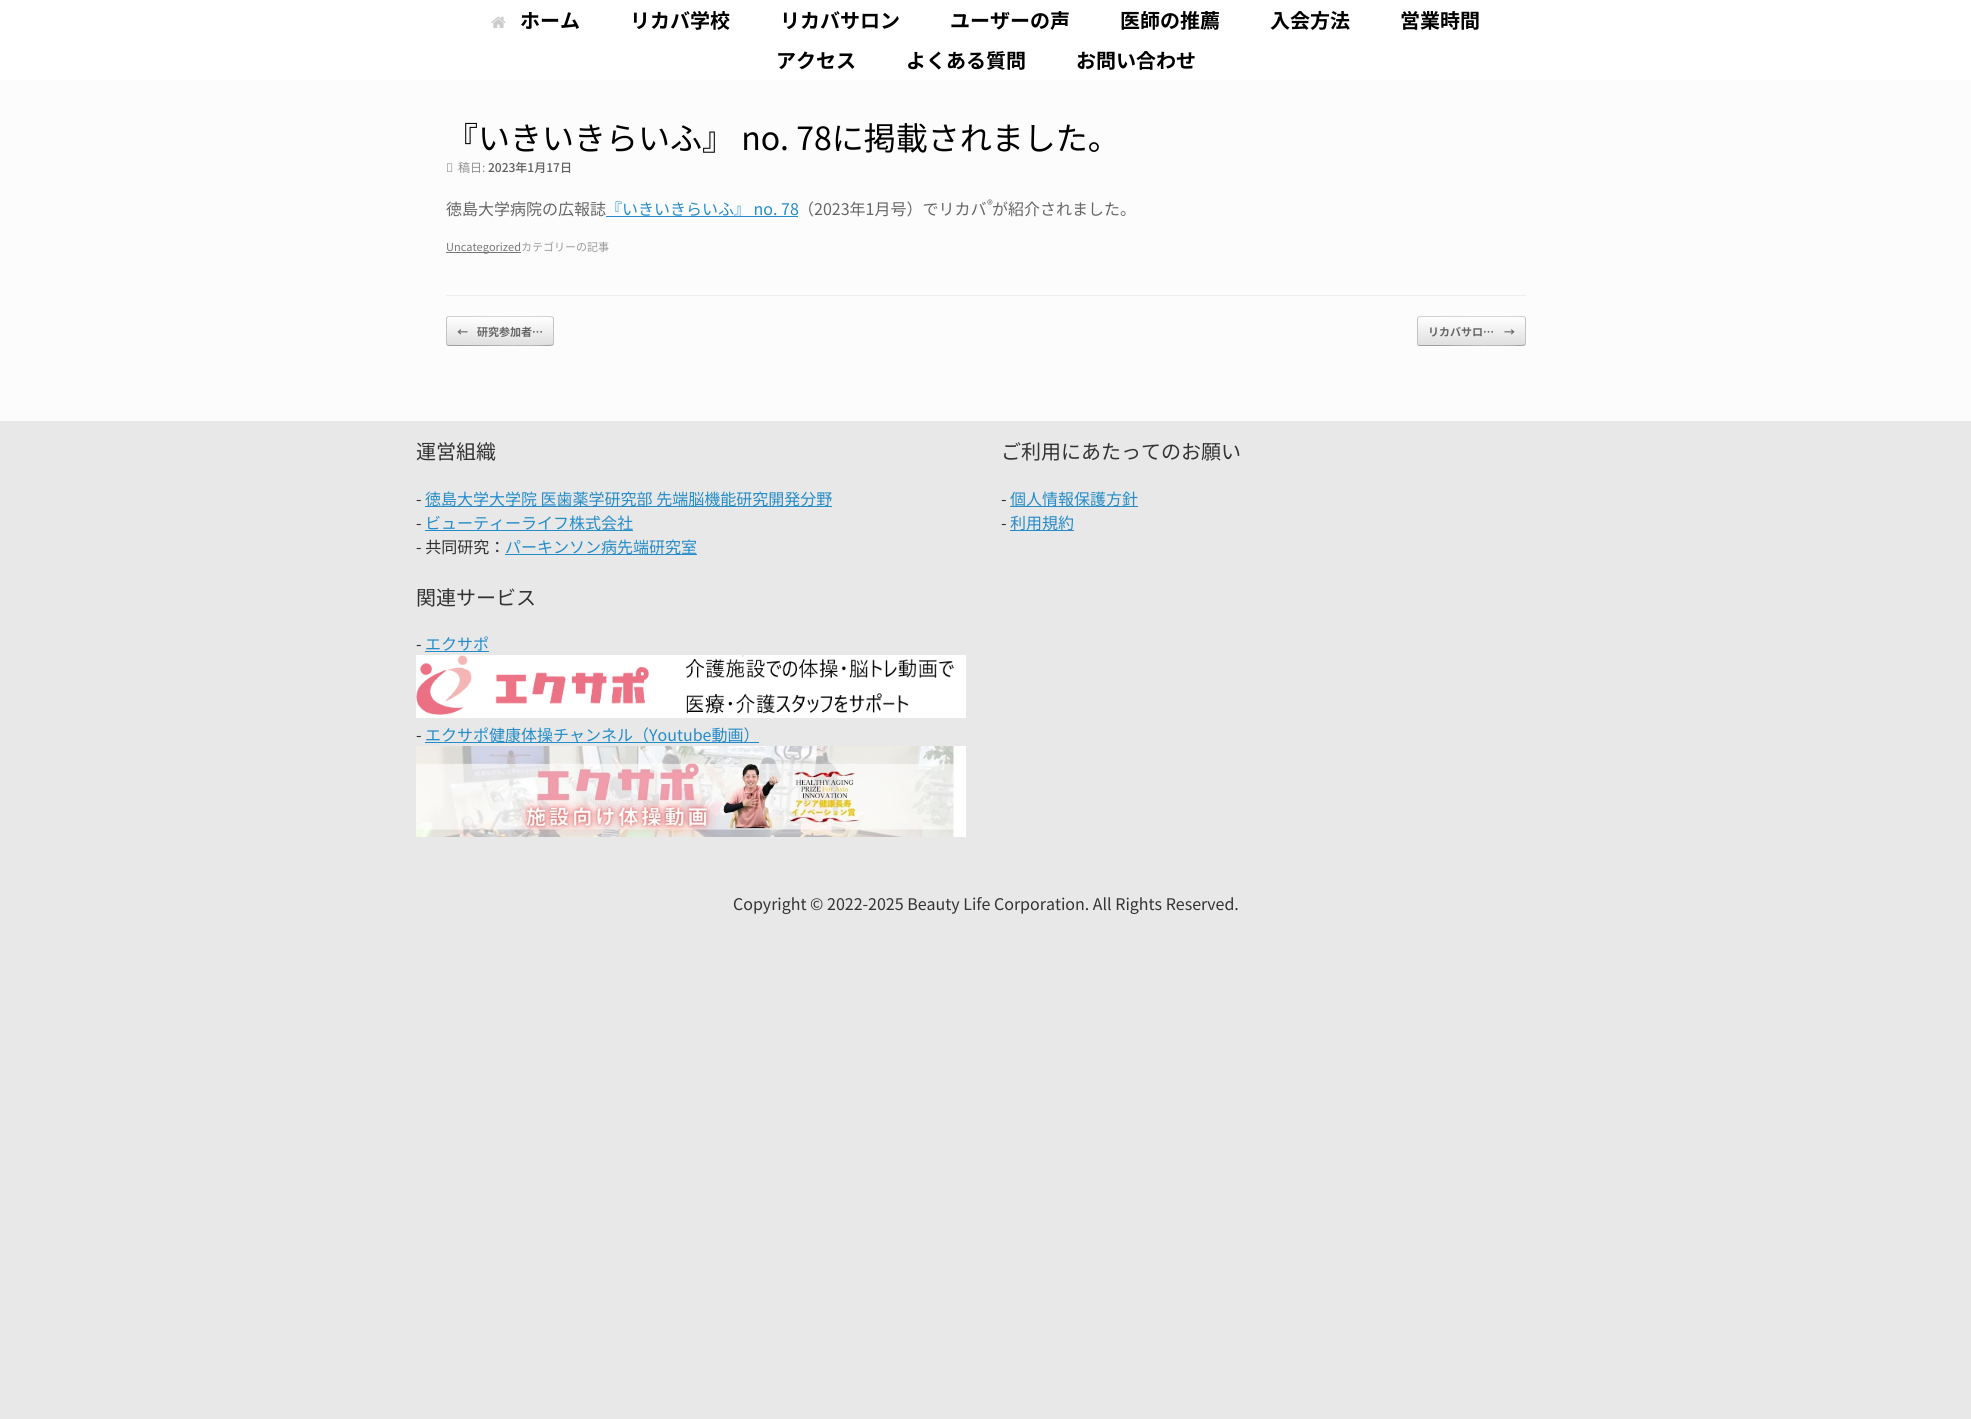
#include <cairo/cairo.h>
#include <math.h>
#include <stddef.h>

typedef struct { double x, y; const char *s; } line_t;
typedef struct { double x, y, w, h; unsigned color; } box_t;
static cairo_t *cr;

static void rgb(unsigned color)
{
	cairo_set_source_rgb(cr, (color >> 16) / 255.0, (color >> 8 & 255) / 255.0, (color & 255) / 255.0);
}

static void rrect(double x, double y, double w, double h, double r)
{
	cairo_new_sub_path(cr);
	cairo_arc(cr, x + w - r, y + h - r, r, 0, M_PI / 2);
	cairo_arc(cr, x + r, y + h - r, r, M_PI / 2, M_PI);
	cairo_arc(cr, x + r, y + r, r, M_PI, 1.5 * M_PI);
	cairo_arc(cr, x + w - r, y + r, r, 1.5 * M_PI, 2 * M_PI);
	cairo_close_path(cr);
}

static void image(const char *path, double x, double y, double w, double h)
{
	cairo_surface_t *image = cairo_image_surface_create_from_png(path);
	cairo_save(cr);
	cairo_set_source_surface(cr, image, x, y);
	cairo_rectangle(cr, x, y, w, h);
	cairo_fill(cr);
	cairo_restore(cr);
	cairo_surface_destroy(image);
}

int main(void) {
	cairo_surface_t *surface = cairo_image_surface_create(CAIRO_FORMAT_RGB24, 1971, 1419);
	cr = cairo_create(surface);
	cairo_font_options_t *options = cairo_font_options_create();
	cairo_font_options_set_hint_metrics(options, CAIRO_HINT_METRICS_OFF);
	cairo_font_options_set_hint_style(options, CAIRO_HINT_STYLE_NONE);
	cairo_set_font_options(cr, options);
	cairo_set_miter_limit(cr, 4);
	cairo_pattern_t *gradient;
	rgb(0xe8e8e8);
	cairo_paint(cr);
	rgb(0xffffff);
	cairo_rectangle(cr, 0, 0, 1971, 80);
	cairo_fill(cr);
	image("img/1.png", 491, 16, 15, 12);
	{
		static const box_t items[] = {
			{0, 80, 1971, 341, 0xfcfcfc},
			{446, 295, 1080, 1, 0xeeeeee},
			{606, 216, 192, 1, 0x248cc8},
			{446, 252, 75, 1, 0x777777},
		};
		for (size_t i = 0; i < sizeof items / sizeof *items; i++) {
			rgb(items[i].color);
			cairo_rectangle(cr, items[i].x, items[i].y, items[i].w, items[i].h);
			cairo_fill(cr);
		}
	}
	cairo_save(cr);
	rrect(446, 316, 108, 30, 3);
	cairo_clip(cr);
	gradient = cairo_pattern_create_linear(447, 317, 447, 289);
	cairo_pattern_add_color_stop_rgba(gradient, 0, 0.875, 0.875, 0.875, 1);
	cairo_pattern_add_color_stop_rgba(gradient, 1, 1, 1, 1, 1);
	cairo_set_source(cr, gradient);
	cairo_pattern_destroy(gradient);
	cairo_rectangle(cr, 446, 316, 108, 1);
	cairo_fill(cr);
	gradient = cairo_pattern_create_linear(447, 345, 447, 317);
	cairo_pattern_add_color_stop_rgba(gradient, 0, 0.875, 0.875, 0.875, 1);
	cairo_pattern_add_color_stop_rgba(gradient, 1, 1, 1, 1, 1);
	cairo_set_source(cr, gradient);
	cairo_pattern_destroy(gradient);
	cairo_rectangle(cr, 446, 317, 108, 28);
	cairo_fill(cr);
	cairo_restore(cr);
	cairo_save(cr);
	cairo_rectangle(cr, 446, 316, 1080, 30);
	cairo_clip(cr);
	cairo_new_path(cr);
	cairo_move_to(cr, 447, 317);
	cairo_line_to(cr, 449, 316.5);
	cairo_line_to(cr, 466, 316.5);
	cairo_curve_to(cr, 475, 316.5, 550.5, 315.5, 552.5, 317);
	cairo_line_to(cr, 553, 317);
	rgb(0xd2d2d2);
	cairo_set_line_width(cr, 1);
	cairo_stroke(cr);
	cairo_restore(cr);
	cairo_new_path(cr);
	cairo_move_to(cr, 553, 317);
	cairo_curve_to(cr, 553, 317.5, 553.5, 318.5, 553.5, 319);
	cairo_line_to(cr, 553.5, 343);
	cairo_curve_to(cr, 553.5, 343.5, 553, 344.5, 553, 345);
	rgb(0xc3c3c3);
	cairo_set_line_width(cr, 1);
	cairo_stroke(cr);
	cairo_save(cr);
	cairo_rectangle(cr, 446, 316, 1080, 30);
	cairo_clip(cr);
	cairo_new_path(cr);
	cairo_move_to(cr, 553, 345);
	cairo_line_to(cr, 552.5, 345);
	cairo_curve_to(cr, 550.5, 346.5, 475, 345.5, 466, 345.5);
	cairo_line_to(cr, 449, 345.5);
	cairo_line_to(cr, 447, 345);
	rgb(0x9f9f9f);
	cairo_stroke(cr);
	cairo_restore(cr);
	cairo_new_path(cr);
	cairo_move_to(cr, 447, 345);
	cairo_curve_to(cr, 447, 344.5, 446.5, 343.5, 446.5, 343);
	cairo_line_to(cr, 446.5, 319);
	cairo_curve_to(cr, 446.5, 318.5, 447, 317.5, 447, 317);
	cairo_stroke(cr);
	cairo_save(cr);
	rrect(1417, 316, 109, 30, 3);
	cairo_clip(cr);
	gradient = cairo_pattern_create_linear(1418, 317, 1418, 289);
	cairo_pattern_add_color_stop_rgba(gradient, 0, 0.875, 0.875, 0.875, 1);
	cairo_pattern_add_color_stop_rgba(gradient, 1, 1, 1, 1, 1);
	cairo_set_source(cr, gradient);
	cairo_pattern_destroy(gradient);
	cairo_rectangle(cr, 1417, 316, 109, 1);
	cairo_fill(cr);
	gradient = cairo_pattern_create_linear(1418, 345, 1418, 317);
	cairo_pattern_add_color_stop_rgba(gradient, 0, 0.875, 0.875, 0.875, 1);
	cairo_pattern_add_color_stop_rgba(gradient, 1, 1, 1, 1, 1);
	cairo_set_source(cr, gradient);
	cairo_pattern_destroy(gradient);
	cairo_rectangle(cr, 1417, 317, 109, 28);
	cairo_fill(cr);
	cairo_restore(cr);
	cairo_save(cr);
	cairo_rectangle(cr, 446, 316, 1080, 30);
	cairo_clip(cr);
	cairo_new_path(cr);
	cairo_move_to(cr, 1418, 317);
	cairo_line_to(cr, 1420, 316.5);
	cairo_line_to(cr, 1437, 316.5);
	cairo_curve_to(cr, 1446, 316.5, 1522.5, 315.5, 1524.5, 317);
	cairo_line_to(cr, 1525, 317);
	rgb(0xd2d2d2);
	cairo_stroke(cr);
	cairo_restore(cr);
	cairo_new_path(cr);
	cairo_move_to(cr, 1525, 317);
	cairo_curve_to(cr, 1525, 317.5, 1525.5, 318.5, 1525.5, 319);
	cairo_line_to(cr, 1525.5, 343);
	cairo_curve_to(cr, 1525.5, 343.5, 1525, 344.5, 1525, 345);
	cairo_stroke(cr);
	cairo_save(cr);
	cairo_rectangle(cr, 446, 316, 1080, 30);
	cairo_clip(cr);
	cairo_new_path(cr);
	cairo_move_to(cr, 1525, 345);
	cairo_line_to(cr, 1524.5, 345);
	cairo_curve_to(cr, 1522.5, 346.5, 1446, 345.5, 1437, 345.5);
	cairo_line_to(cr, 1420, 345.5);
	cairo_line_to(cr, 1418, 345);
	rgb(0x9f9f9f);
	cairo_stroke(cr);
	cairo_restore(cr);
	cairo_new_path(cr);
	cairo_move_to(cr, 1418, 345);
	cairo_curve_to(cr, 1418, 344.5, 1417.5, 343.5, 1417.5, 343);
	cairo_line_to(cr, 1417.5, 319);
	cairo_curve_to(cr, 1417.5, 318.5, 1418, 317.5, 1418, 317);
	cairo_stroke(cr);
	{
		static const box_t items[] = {
			{425, 506, 407, 1, 0x248cc8},
			{425, 530, 208, 1, 0x248cc8},
			{505, 554, 192, 1, 0x248cc8},
			{425, 651, 64, 1, 0x248cc8},
		};
		for (size_t i = 0; i < sizeof items / sizeof *items; i++) {
			rgb(items[i].color);
			cairo_rectangle(cr, items[i].x, items[i].y, items[i].w, items[i].h);
			cairo_fill(cr);
		}
	}
	image("img/2.png", 416, 655, 550, 63);
	cairo_rectangle(cr, 425, 742, 334, 1);
	cairo_fill(cr);
	image("img/3.png", 416, 746, 550, 91);
	cairo_rectangle(cr, 1010, 506, 128, 1);
	cairo_fill(cr);
	cairo_rectangle(cr, 1010, 530, 64, 1);
	cairo_fill(cr);
	cairo_select_font_face(cr, "Noto Sans JP", CAIRO_FONT_SLANT_NORMAL, CAIRO_FONT_WEIGHT_BOLD);
	cairo_set_font_size(cr, 20);
	rgb(0x000000);
	{
		static const line_t items[] = {
			{520, 28, "ホーム"},
			{630, 28, "リカバ学校"},
			{780, 28, "リカバサロン"},
			{950, 28, "ユーザーの声"},
			{1120, 28, "医師の推薦"},
			{1270, 28, "入会方法"},
			{1400, 28, "営業時間"},
			{776, 68, "アクセス"},
			{906, 68, "よくある質問"},
			{1076, 68, "お問い合わせ"},
		};
		for (size_t i = 0; i < sizeof items / sizeof *items; i++) {
			cairo_move_to(cr, items[i].x, items[i].y);
			cairo_show_text(cr, items[i].s);
		}
	}
	cairo_select_font_face(cr, "Noto Sans JP", CAIRO_FONT_SLANT_NORMAL, CAIRO_FONT_WEIGHT_NORMAL);
	cairo_set_font_size(cr, 32);
	cairo_move_to(cr, 446, 150);
	cairo_show_text(cr, "『いきいきらいふ』 no. 78に掲載されました。");
	cairo_select_font_face(cr, "Noto Sans", CAIRO_FONT_SLANT_NORMAL, CAIRO_FONT_WEIGHT_NORMAL);
	cairo_set_font_size(cr, 12);
	rgb(0x8f8f8f);
	cairo_move_to(cr, 446, 172);
	cairo_show_text(cr, "投");
	cairo_select_font_face(cr, "Noto Sans JP", CAIRO_FONT_SLANT_NORMAL, CAIRO_FONT_WEIGHT_NORMAL);
	cairo_move_to(cr, 458, 172);
	cairo_show_text(cr, "稿日:");
	cairo_select_font_face(cr, "Noto Sans JP Medium", CAIRO_FONT_SLANT_NORMAL, CAIRO_FONT_WEIGHT_NORMAL);
	rgb(0x5e5e5e);
	cairo_move_to(cr, 488, 172);
	cairo_show_text(cr, "2023年1月17日");
	cairo_select_font_face(cr, "Noto Sans JP", CAIRO_FONT_SLANT_NORMAL, CAIRO_FONT_WEIGHT_NORMAL);
	cairo_set_font_size(cr, 16);
	rgb(0x666666);
	cairo_move_to(cr, 446, 215);
	cairo_show_text(cr, "徳島大学病院の広報誌");
	rgb(0x248cc8);
	cairo_move_to(cr, 606, 215);
	cairo_show_text(cr, "『いきいきらいふ』 no. 78");
	rgb(0x666666);
	cairo_move_to(cr, 798, 215);
	cairo_show_text(cr, "（2023年1月号）でリカバ");
	cairo_set_font_size(cr, 12);
	cairo_move_to(cr, 987, 209);
	cairo_show_text(cr, "®");
	cairo_set_font_size(cr, 16);
	cairo_move_to(cr, 992, 215);
	cairo_show_text(cr, "が紹介されました。");
	cairo_set_font_size(cr, 11);
	rgb(0x777777);
	cairo_move_to(cr, 446, 251);
	cairo_show_text(cr, "Uncategorized");
	rgb(0x999999);
	cairo_move_to(cr, 521, 251);
	cairo_show_text(cr, "カテゴリーの記事");
	cairo_select_font_face(cr, "Noto Sans JP", CAIRO_FONT_SLANT_NORMAL, CAIRO_FONT_WEIGHT_BOLD);
	rgb(0x666666);
	{
		static const line_t items[] = {
			{457, 336, "←"},
			{477, 336, "研究参加者…"},
			{1428, 336, "リカバサロ…"},
			{1504, 336, "→"},
		};
		for (size_t i = 0; i < sizeof items / sizeof *items; i++) {
			cairo_move_to(cr, items[i].x, items[i].y);
			cairo_show_text(cr, items[i].s);
		}
	}
	cairo_select_font_face(cr, "Noto Sans JP", CAIRO_FONT_SLANT_NORMAL, CAIRO_FONT_WEIGHT_NORMAL);
	cairo_set_font_size(cr, 20);
	rgb(0x333333);
	cairo_move_to(cr, 416, 459);
	cairo_show_text(cr, "運営組織");
	cairo_set_font_size(cr, 16);
	cairo_move_to(cr, 416, 505);
	cairo_show_text(cr, "-");
	rgb(0x248cc8);
	cairo_move_to(cr, 425, 505);
	cairo_show_text(cr, "徳島大学大学院 医歯薬学研究部 先端脳機能研究開発分野");
	rgb(0x333333);
	cairo_move_to(cr, 416, 529);
	cairo_show_text(cr, "-");
	rgb(0x248cc8);
	cairo_move_to(cr, 425, 529);
	cairo_show_text(cr, "ビューティーライフ株式会社");
	rgb(0x333333);
	cairo_move_to(cr, 416, 553);
	cairo_show_text(cr, "- 共同研究：");
	rgb(0x248cc8);
	cairo_move_to(cr, 505, 553);
	cairo_show_text(cr, "パーキンソン病先端研究室");
	cairo_set_font_size(cr, 20);
	rgb(0x333333);
	cairo_move_to(cr, 416, 605);
	cairo_show_text(cr, "関連サービス");
	cairo_set_font_size(cr, 16);
	cairo_move_to(cr, 416, 650);
	cairo_show_text(cr, "-");
	rgb(0x248cc8);
	cairo_move_to(cr, 425, 650);
	cairo_show_text(cr, "エクサポ");
	rgb(0x333333);
	cairo_move_to(cr, 416, 741);
	cairo_show_text(cr, "-");
	rgb(0x248cc8);
	cairo_move_to(cr, 425, 741);
	cairo_show_text(cr, "エクサポ健康体操チャンネル（Youtube動画）");
	cairo_set_font_size(cr, 20);
	rgb(0x333333);
	cairo_move_to(cr, 1001, 459);
	cairo_show_text(cr, "ご利用にあたってのお願い");
	cairo_set_font_size(cr, 16);
	cairo_move_to(cr, 1001, 505);
	cairo_show_text(cr, "-");
	rgb(0x248cc8);
	cairo_move_to(cr, 1010, 505);
	cairo_show_text(cr, "個人情報保護方針");
	rgb(0x333333);
	cairo_move_to(cr, 1001, 529);
	cairo_show_text(cr, "-");
	rgb(0x248cc8);
	cairo_move_to(cr, 1010, 529);
	cairo_show_text(cr, "利用規約");
	rgb(0x333333);
	cairo_move_to(cr, 733, 910);
	cairo_show_text(cr, "Copyright © 2022-2025 Beauty Life Corporation. All Rights Reserved.");
	cairo_surface_write_to_png(surface, "page.png");
	cairo_font_options_destroy(options);
	cairo_destroy(cr);
	cairo_surface_destroy(surface);
	return 0;
}
